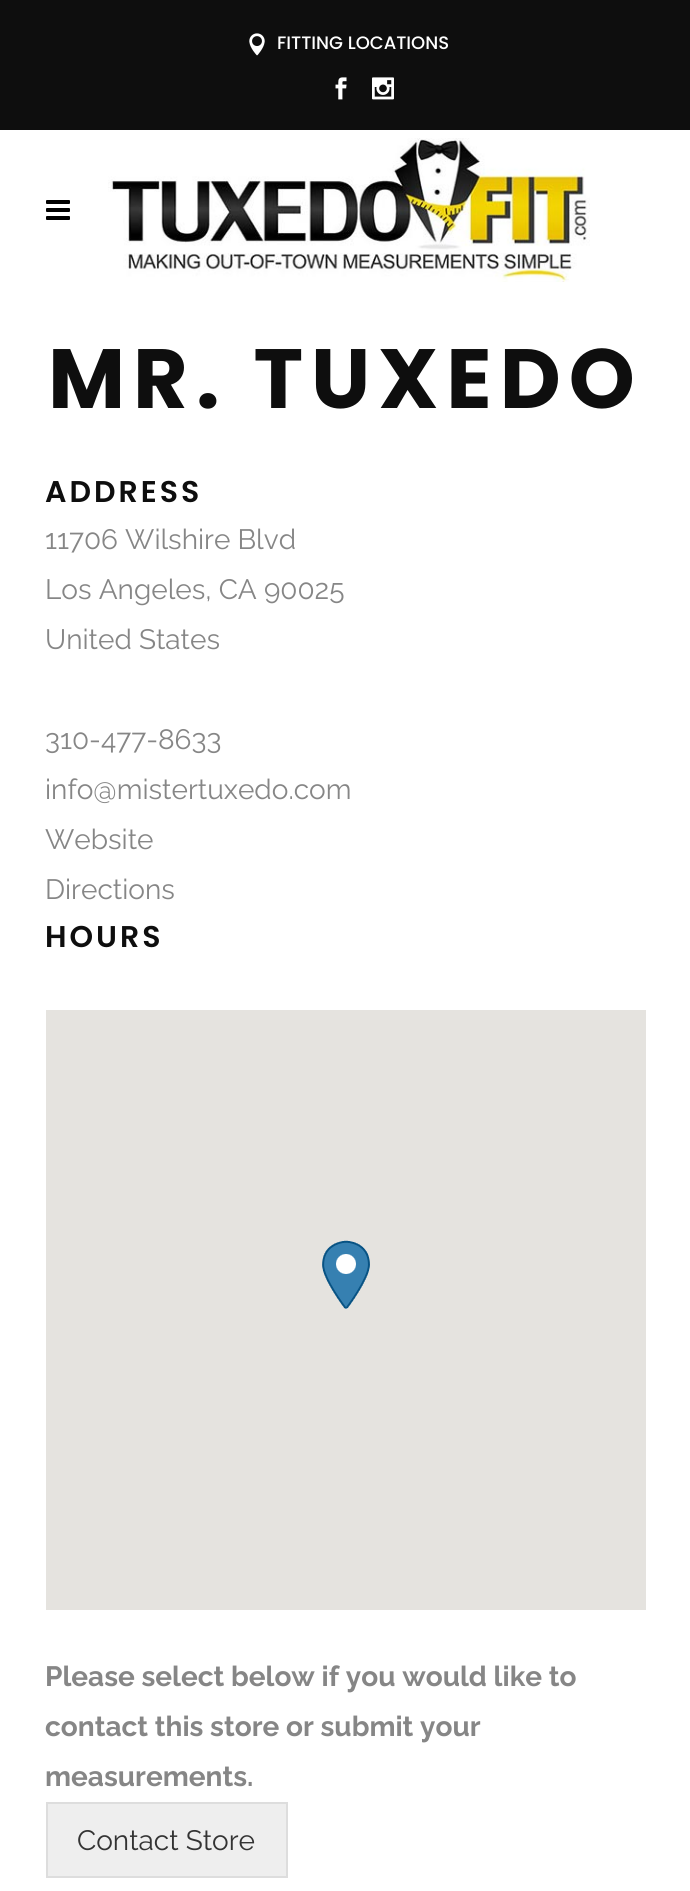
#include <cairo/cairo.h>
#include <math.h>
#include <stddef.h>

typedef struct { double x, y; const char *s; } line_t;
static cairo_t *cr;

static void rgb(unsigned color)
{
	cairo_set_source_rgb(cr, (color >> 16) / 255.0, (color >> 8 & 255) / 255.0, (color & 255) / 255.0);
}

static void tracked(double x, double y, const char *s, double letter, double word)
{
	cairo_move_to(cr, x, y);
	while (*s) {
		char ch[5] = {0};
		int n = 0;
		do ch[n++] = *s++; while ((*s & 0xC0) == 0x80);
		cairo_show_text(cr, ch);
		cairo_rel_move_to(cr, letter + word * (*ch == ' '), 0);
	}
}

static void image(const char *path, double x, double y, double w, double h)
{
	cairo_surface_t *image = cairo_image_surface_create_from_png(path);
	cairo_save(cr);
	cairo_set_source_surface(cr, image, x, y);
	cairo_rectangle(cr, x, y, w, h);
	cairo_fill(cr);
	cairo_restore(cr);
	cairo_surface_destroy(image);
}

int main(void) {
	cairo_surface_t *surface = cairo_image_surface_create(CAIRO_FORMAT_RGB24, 690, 1891);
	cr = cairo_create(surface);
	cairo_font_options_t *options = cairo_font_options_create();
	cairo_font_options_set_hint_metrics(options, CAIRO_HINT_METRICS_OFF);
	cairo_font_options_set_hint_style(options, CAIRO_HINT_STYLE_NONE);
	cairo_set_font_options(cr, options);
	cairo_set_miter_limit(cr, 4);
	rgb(0xffffff);
	cairo_paint(cr);
	rgb(0x0e0e0e);
	cairo_rectangle(cr, 0, 0, 690, 130);
	cairo_fill(cr);
	image("img/1.png", 249, 33, 16, 23);
	image("img/2.png", 335, 77, 12, 23);
	image("img/3.png", 372, 77, 22, 23);
	image("img/4.png", 46, 200, 24, 20);
	image("img/5.png", 108, 138, 482, 144);
	rgb(0xe5e3df);
	cairo_rectangle(cr, 46, 1010, 600, 600);
	cairo_fill(cr);
	image("img/6.png", 322, 1240, 48, 69);
	rgb(0xeeeeee);
	cairo_rectangle(cr, 47, 1803, 240, 74);
	cairo_fill_preserve(cr);
	rgb(0xdddddd);
	cairo_stroke(cr);
	cairo_select_font_face(cr, "Poppins Medium", CAIRO_FONT_SLANT_NORMAL, CAIRO_FONT_WEIGHT_NORMAL);
	cairo_set_font_size(cr, 18);
	rgb(0xffffff);
	cairo_move_to(cr, 277, 49);
	cairo_show_text(cr, "FITTING LOCATIONS");
	cairo_select_font_face(cr, "Poppins", CAIRO_FONT_SLANT_NORMAL, CAIRO_FONT_WEIGHT_BOLD);
	cairo_set_font_size(cr, 84);
	rgb(0x0e0e0e);
	tracked(48, 408, "MR. TUXEDO", 8, 0);
	cairo_select_font_face(cr, "Poppins SemiBold", CAIRO_FONT_SLANT_NORMAL, CAIRO_FONT_WEIGHT_NORMAL);
	cairo_set_font_size(cr, 30);
	tracked(45, 502, "ADDRESS", 3, 0);
	cairo_select_font_face(cr, "Raleway", CAIRO_FONT_SLANT_NORMAL, CAIRO_FONT_WEIGHT_NORMAL);
	cairo_set_font_size(cr, 28);
	rgb(0x868686);
	{
		static const line_t items[] = {
			{45, 549, "11706 Wilshire Blvd"},
			{45, 599, "Los Angeles, CA 90025"},
			{45, 649, "United States"},
			{45, 749, "310-477-8633"},
			{45, 799, "info@mistertuxedo.com"},
			{45, 849, "Website"},
			{45, 899, "Directions"},
		};
		for (size_t i = 0; i < sizeof items / sizeof *items; i++) {
			cairo_move_to(cr, items[i].x, items[i].y);
			cairo_show_text(cr, items[i].s);
		}
	}
	cairo_select_font_face(cr, "Poppins SemiBold", CAIRO_FONT_SLANT_NORMAL, CAIRO_FONT_WEIGHT_NORMAL);
	cairo_set_font_size(cr, 30);
	rgb(0x0e0e0e);
	tracked(45, 947, "HOURS", 3, 0);
	cairo_select_font_face(cr, "Raleway", CAIRO_FONT_SLANT_NORMAL, CAIRO_FONT_WEIGHT_BOLD);
	cairo_set_font_size(cr, 28);
	rgb(0x868686);
	{
		static const line_t items[] = {
			{45, 1686, "Please select below if you would like to"},
			{45, 1736, "contact this store or submit your"},
			{45, 1786, "measurements."},
		};
		for (size_t i = 0; i < sizeof items / sizeof *items; i++) {
			cairo_move_to(cr, items[i].x, items[i].y);
			cairo_show_text(cr, items[i].s);
		}
	}
	cairo_select_font_face(cr, "Raleway", CAIRO_FONT_SLANT_NORMAL, CAIRO_FONT_WEIGHT_NORMAL);
	rgb(0x333333);
	cairo_move_to(cr, 77, 1850);
	cairo_show_text(cr, "Contact Store");
	cairo_surface_write_to_png(surface, "page.png");
	cairo_font_options_destroy(options);
	cairo_destroy(cr);
	cairo_surface_destroy(surface);
	return 0;
}
